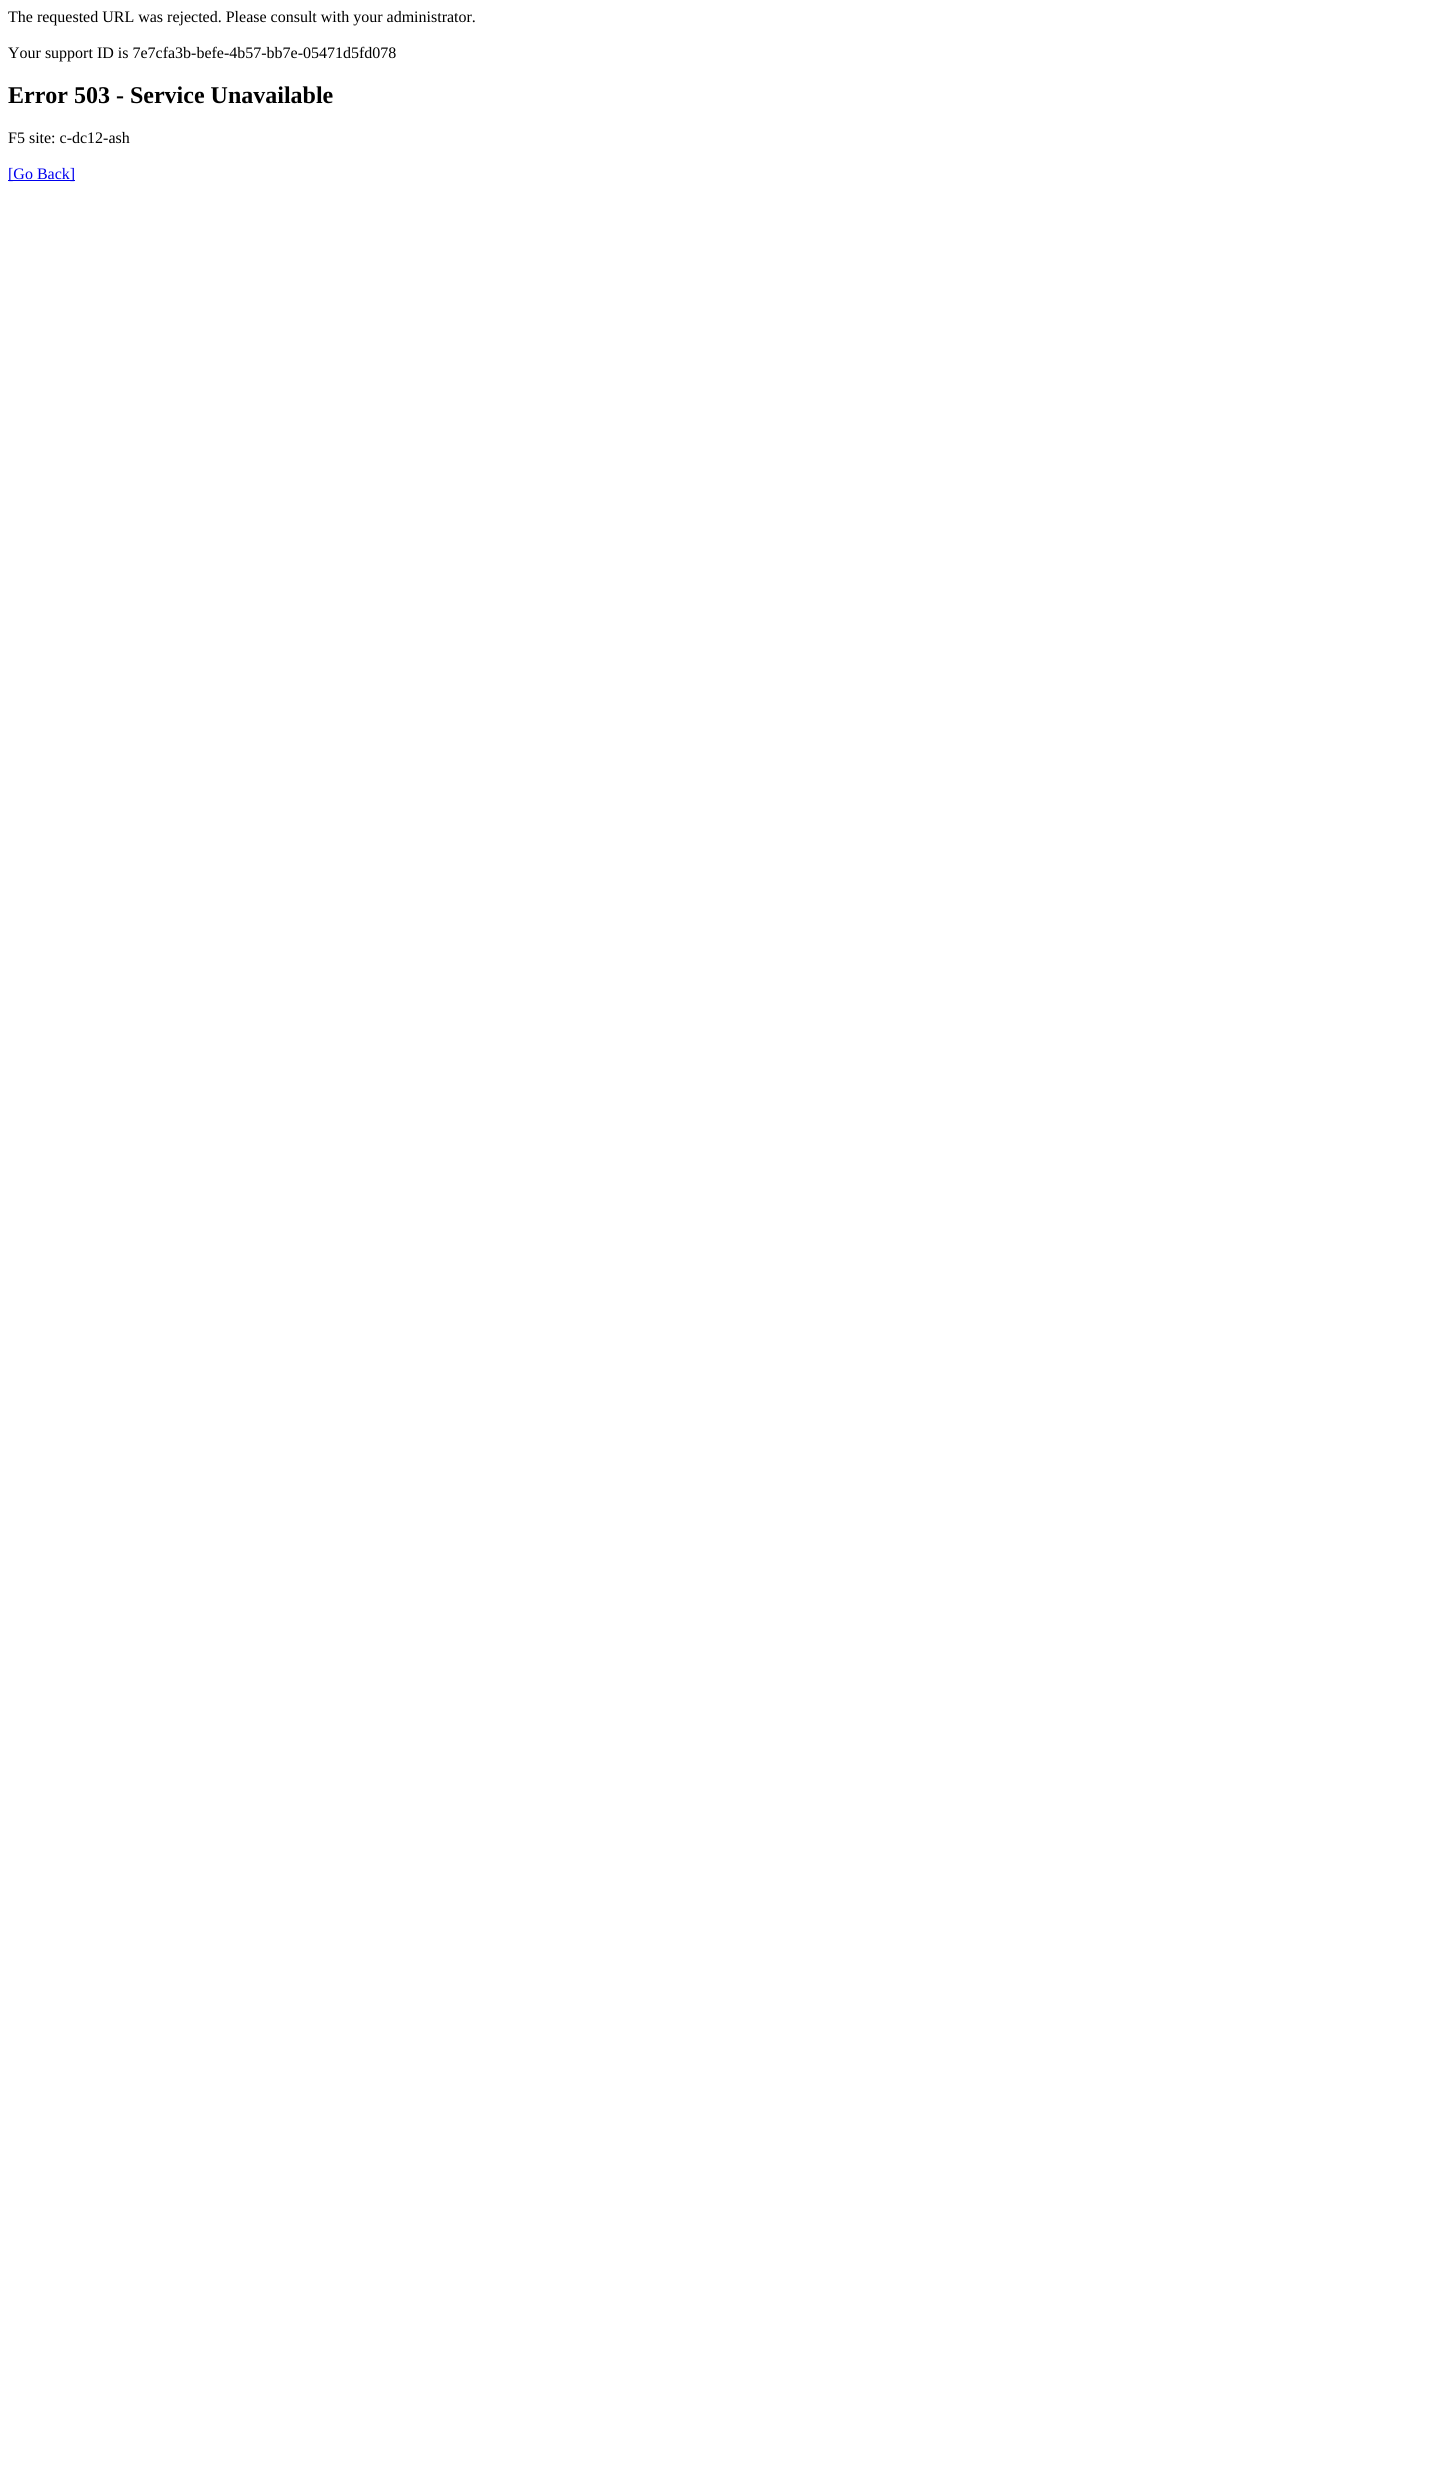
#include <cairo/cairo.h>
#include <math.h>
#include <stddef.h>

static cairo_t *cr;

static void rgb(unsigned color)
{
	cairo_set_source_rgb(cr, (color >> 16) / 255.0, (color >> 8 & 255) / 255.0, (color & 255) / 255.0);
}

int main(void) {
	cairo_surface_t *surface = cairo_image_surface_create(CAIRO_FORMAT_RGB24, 1455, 2492);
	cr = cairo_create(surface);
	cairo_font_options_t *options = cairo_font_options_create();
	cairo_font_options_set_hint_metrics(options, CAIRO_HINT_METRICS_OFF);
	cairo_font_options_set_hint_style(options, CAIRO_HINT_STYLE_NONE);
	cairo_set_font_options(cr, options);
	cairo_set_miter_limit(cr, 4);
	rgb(0xffffff);
	cairo_paint(cr);
	rgb(0x0000ee);
	cairo_rectangle(cr, 8, 180, 67, 1);
	cairo_fill(cr);
	cairo_select_font_face(cr, "Liberation Serif", CAIRO_FONT_SLANT_NORMAL, CAIRO_FONT_WEIGHT_NORMAL);
	cairo_set_font_size(cr, 16);
	rgb(0x000000);
	cairo_move_to(cr, 8, 22);
	cairo_show_text(cr, "The requested URL was rejected. Please consult with your administrator.");
	cairo_move_to(cr, 8, 58);
	cairo_show_text(cr, "Your support ID is 7e7cfa3b-befe-4b57-bb7e-05471d5fd078");
	cairo_select_font_face(cr, "Liberation Serif", CAIRO_FONT_SLANT_NORMAL, CAIRO_FONT_WEIGHT_BOLD);
	cairo_set_font_size(cr, 24);
	cairo_move_to(cr, 8, 103);
	cairo_show_text(cr, "Error 503 - Service Unavailable");
	cairo_select_font_face(cr, "Liberation Serif", CAIRO_FONT_SLANT_NORMAL, CAIRO_FONT_WEIGHT_NORMAL);
	cairo_set_font_size(cr, 16);
	cairo_move_to(cr, 8, 143);
	cairo_show_text(cr, "F5 site: c-dc12-ash");
	rgb(0x0000ee);
	cairo_move_to(cr, 8, 179);
	cairo_show_text(cr, "[Go Back]");
	cairo_surface_write_to_png(surface, "page.png");
	cairo_font_options_destroy(options);
	cairo_destroy(cr);
	cairo_surface_destroy(surface);
	return 0;
}
